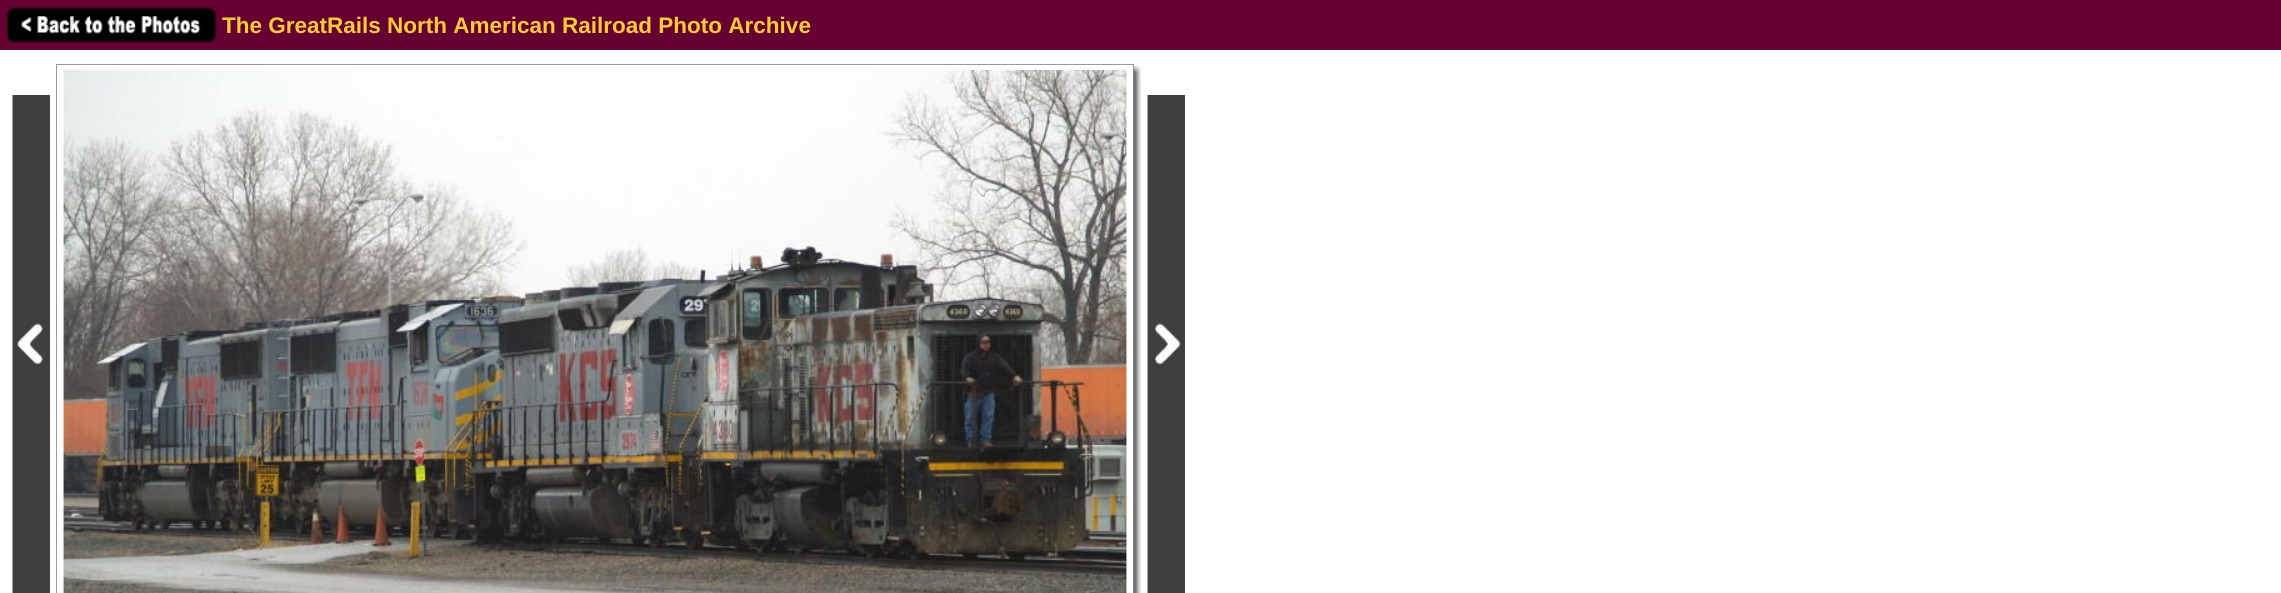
#include <cairo/cairo.h>
#include <math.h>
#include <stddef.h>

static cairo_t *cr;

static void rgb(unsigned color)
{
	cairo_set_source_rgb(cr, (color >> 16) / 255.0, (color >> 8 & 255) / 255.0, (color & 255) / 255.0);
}

static void image(const char *path, double x, double y, double w, double h)
{
	cairo_surface_t *image = cairo_image_surface_create_from_png(path);
	cairo_save(cr);
	cairo_set_source_surface(cr, image, x, y);
	cairo_rectangle(cr, x, y, w, h);
	cairo_fill(cr);
	cairo_restore(cr);
	cairo_surface_destroy(image);
}

int main(void) {
	cairo_surface_t *surface = cairo_image_surface_create(CAIRO_FORMAT_RGB24, 2281, 593);
	cr = cairo_create(surface);
	cairo_font_options_t *options = cairo_font_options_create();
	cairo_font_options_set_hint_metrics(options, CAIRO_HINT_METRICS_OFF);
	cairo_font_options_set_hint_style(options, CAIRO_HINT_STYLE_NONE);
	cairo_set_font_options(cr, options);
	cairo_set_miter_limit(cr, 4);
	rgb(0xffffff);
	cairo_paint(cr);
	rgb(0x660033);
	cairo_rectangle(cr, 0, 0, 2281, 50);
	cairo_fill(cr);
	image("img/1.png", 7, 7, 210, 36);
	image("img/2.png", 12, 95, 38, 498);
	cairo_rectangle(cr, 56.5, 64.5, 1077, 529);
	rgb(0x9a9a9a);
	cairo_set_line_width(cr, 1);
	cairo_stroke(cr);
	image("img/3.png", 63, 70, 1064, 523);
	image("img/4.png", 63, 70, 1064, 523);
	image("img/5.png", 1133, 64, 8, 529);
	image("img/6.png", 1147, 95, 38, 498);
	cairo_select_font_face(cr, "Liberation Sans", CAIRO_FONT_SLANT_NORMAL, CAIRO_FONT_WEIGHT_BOLD);
	cairo_set_font_size(cr, 22.5);
	rgb(0xffcc33);
	cairo_move_to(cr, 222, 33);
	cairo_show_text(cr, "The GreatRails North American Railroad Photo Archive");
	cairo_surface_write_to_png(surface, "page.png");
	cairo_font_options_destroy(options);
	cairo_destroy(cr);
	cairo_surface_destroy(surface);
	return 0;
}
